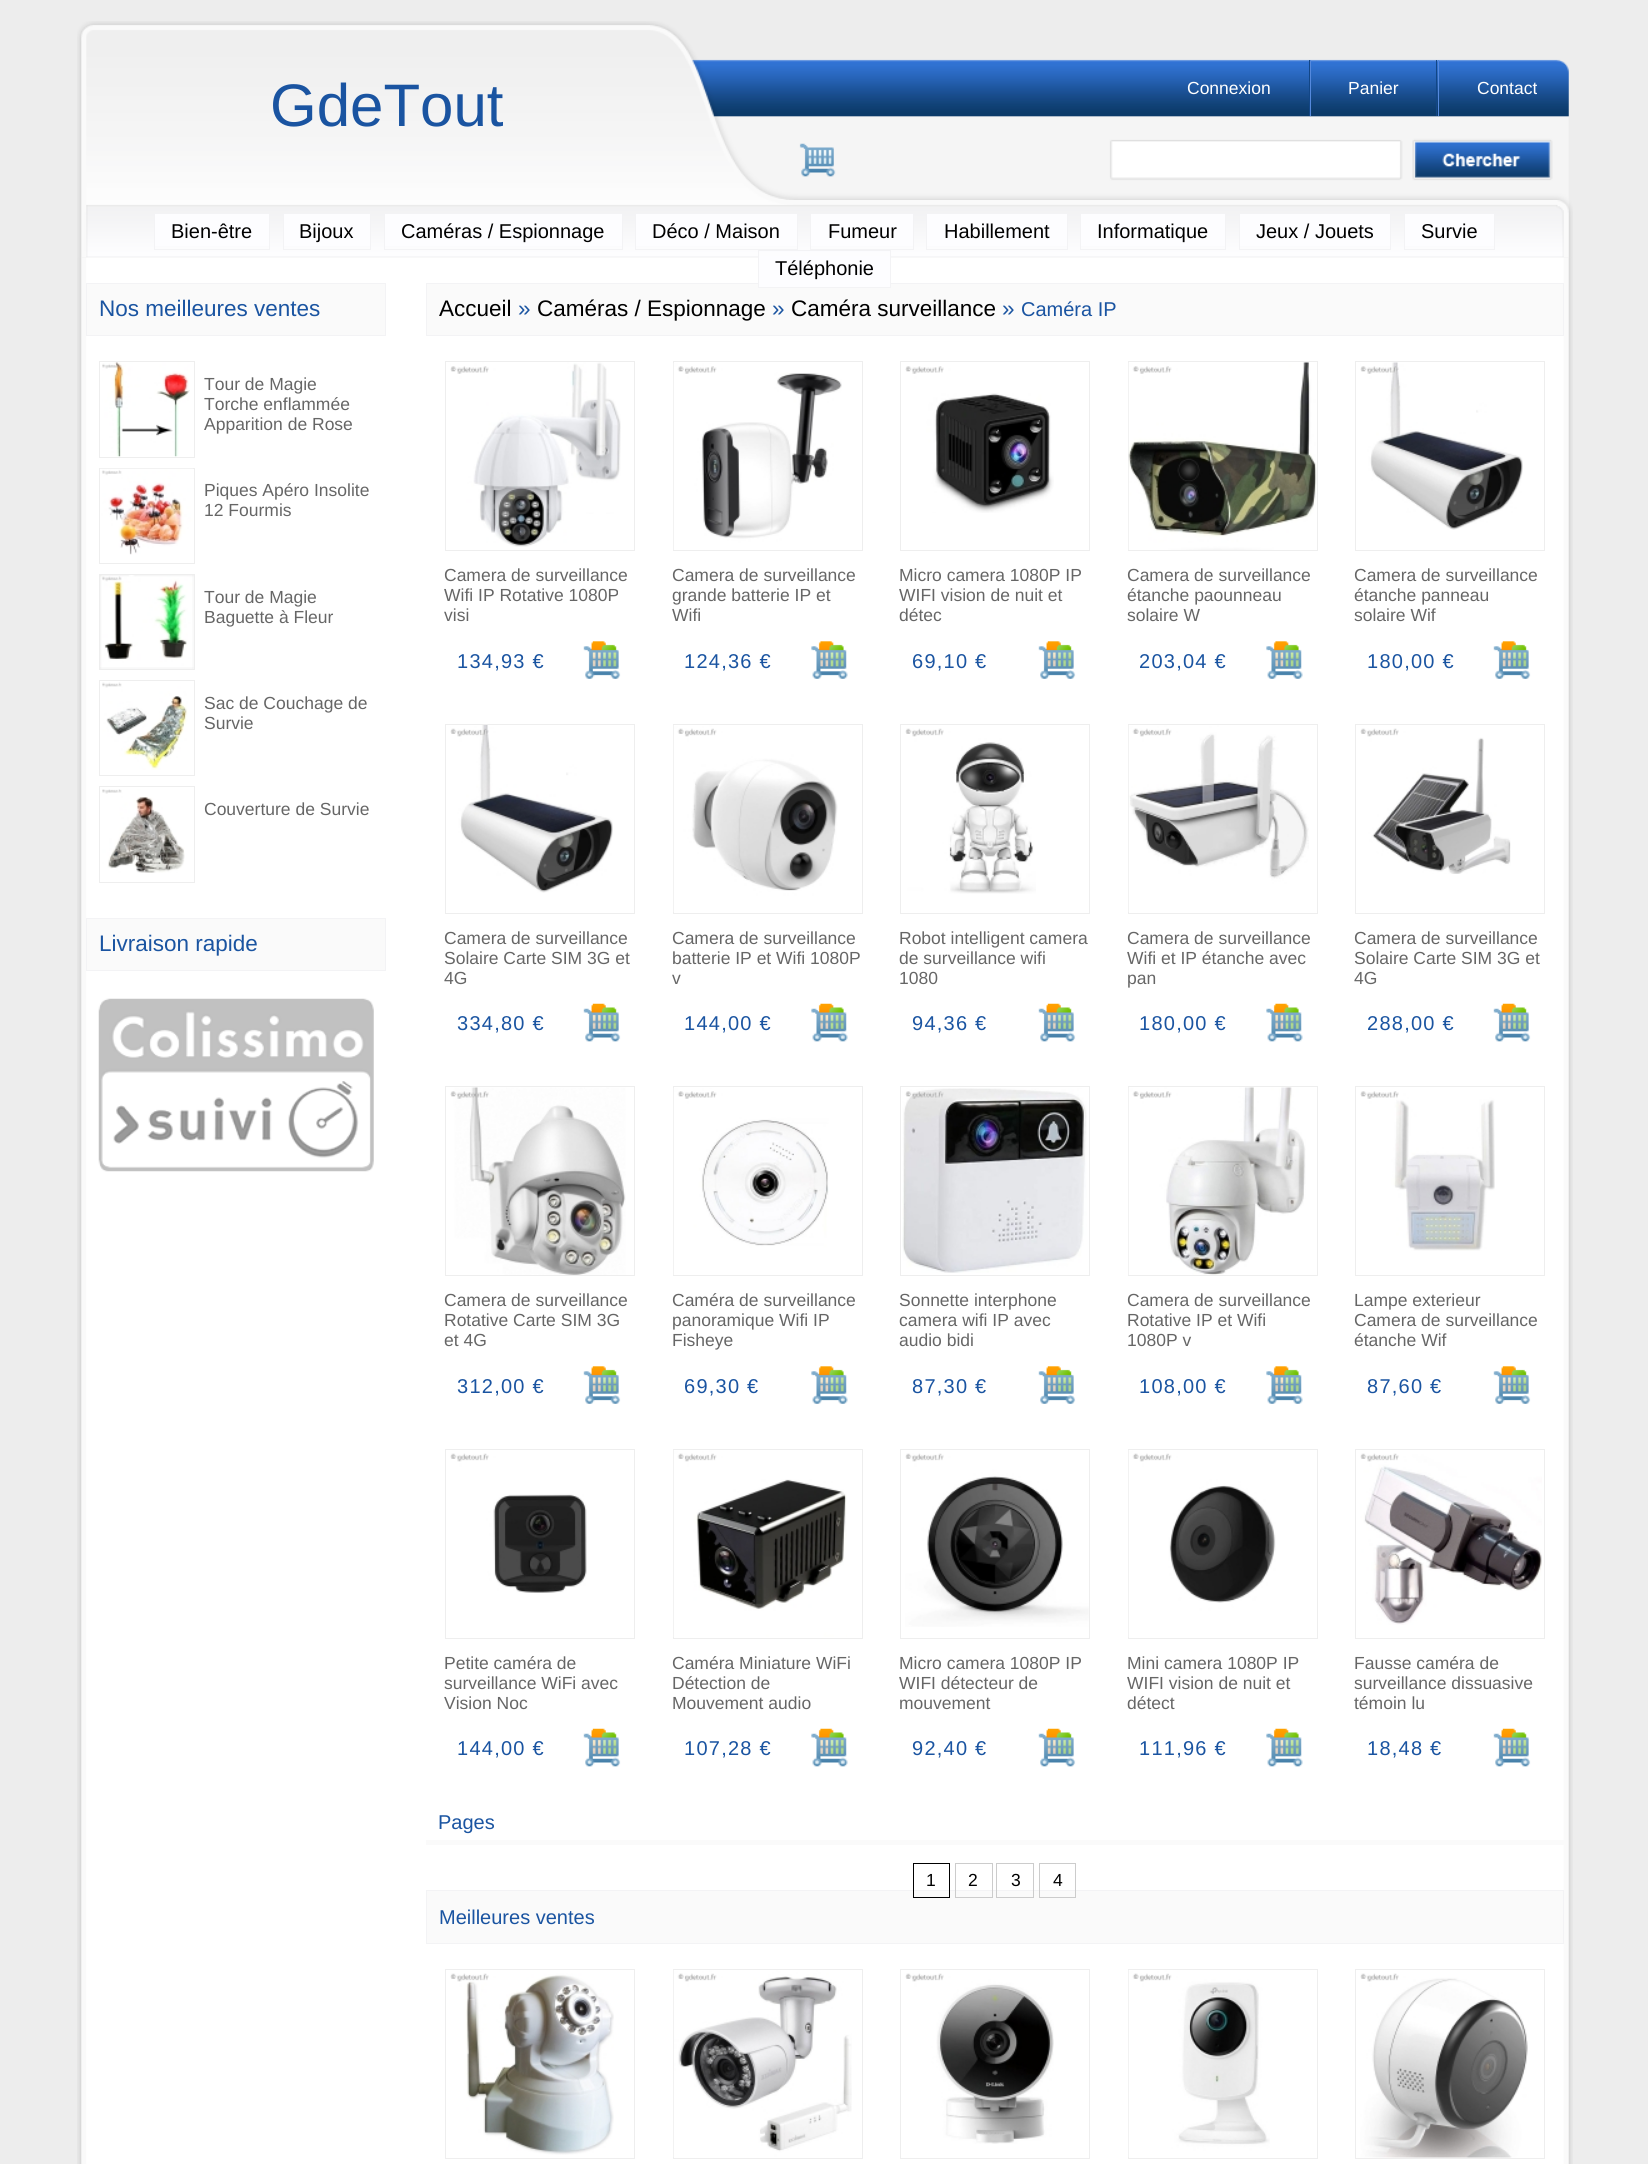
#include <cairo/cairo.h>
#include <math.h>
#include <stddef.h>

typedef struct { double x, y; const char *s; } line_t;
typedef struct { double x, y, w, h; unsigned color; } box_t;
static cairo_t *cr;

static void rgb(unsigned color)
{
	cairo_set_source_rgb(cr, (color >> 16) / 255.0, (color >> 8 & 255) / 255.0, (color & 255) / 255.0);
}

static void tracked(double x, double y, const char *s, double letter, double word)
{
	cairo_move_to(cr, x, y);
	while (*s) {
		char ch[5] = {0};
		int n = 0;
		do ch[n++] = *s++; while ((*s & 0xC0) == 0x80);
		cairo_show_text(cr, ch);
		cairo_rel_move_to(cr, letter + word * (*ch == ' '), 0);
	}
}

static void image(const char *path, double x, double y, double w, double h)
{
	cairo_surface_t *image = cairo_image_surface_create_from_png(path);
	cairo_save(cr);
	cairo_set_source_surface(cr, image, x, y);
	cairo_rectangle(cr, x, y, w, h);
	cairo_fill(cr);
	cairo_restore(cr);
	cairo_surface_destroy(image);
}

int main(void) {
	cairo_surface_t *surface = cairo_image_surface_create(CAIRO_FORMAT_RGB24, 1648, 2164);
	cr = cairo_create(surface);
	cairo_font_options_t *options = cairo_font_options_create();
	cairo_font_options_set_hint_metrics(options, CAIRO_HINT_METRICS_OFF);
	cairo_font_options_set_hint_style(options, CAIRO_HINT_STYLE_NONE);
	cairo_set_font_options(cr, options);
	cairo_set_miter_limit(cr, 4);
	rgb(0xededed);
	cairo_paint(cr);
	image("img/1.png", 77, 21, 1492, 179);
	{
		static const box_t items[] = {
			{1309, 60, 1, 56, 0x124686},
			{1436, 60, 1, 56, 0x124686},
			{1310, 60, 1, 56, 0x5589dd},
			{1438, 60, 1, 56, 0x5589dd},
		};
		for (size_t i = 0; i < sizeof items / sizeof *items; i++) {
			rgb(items[i].color);
			cairo_rectangle(cr, items[i].x, items[i].y, items[i].w, items[i].h);
			cairo_fill(cr);
		}
	}
	image("img/2.png", 77, 200, 1496, 58);
	rgb(0xfdfdff);
	cairo_rectangle(cr, 155, 214, 114, 32);
	cairo_fill(cr);
	cairo_rectangle(cr, 154.5, 213.5, 115, 36);
	rgb(0xf3f3f5);
	cairo_set_line_width(cr, 1);
	cairo_stroke(cr);
	rgb(0xfdfdff);
	cairo_rectangle(cr, 284, 214, 86, 32);
	cairo_fill(cr);
	cairo_rectangle(cr, 283.5, 213.5, 87, 36);
	rgb(0xf3f3f5);
	cairo_stroke(cr);
	rgb(0xfdfdff);
	cairo_rectangle(cr, 385, 214, 237, 32);
	cairo_fill(cr);
	cairo_rectangle(cr, 384.5, 213.5, 238, 36);
	rgb(0xf3f3f5);
	cairo_stroke(cr);
	rgb(0xfdfdff);
	cairo_rectangle(cr, 636, 214, 161, 32);
	cairo_fill(cr);
	cairo_rectangle(cr, 635.5, 213.5, 162, 36);
	rgb(0xf3f3f5);
	cairo_stroke(cr);
	rgb(0xfdfdff);
	cairo_rectangle(cr, 811, 214, 102, 32);
	cairo_fill(cr);
	cairo_rectangle(cr, 810.5, 213.5, 103, 36);
	rgb(0xf3f3f5);
	cairo_stroke(cr);
	rgb(0xfdfdff);
	cairo_rectangle(cr, 927, 214, 140, 32);
	cairo_fill(cr);
	cairo_rectangle(cr, 926.5, 213.5, 141, 36);
	rgb(0xf3f3f5);
	cairo_stroke(cr);
	rgb(0xfdfdff);
	cairo_rectangle(cr, 1081, 214, 144, 32);
	cairo_fill(cr);
	cairo_rectangle(cr, 1080.5, 213.5, 145, 36);
	rgb(0xf3f3f5);
	cairo_stroke(cr);
	rgb(0xfdfdff);
	cairo_rectangle(cr, 1240, 214, 150, 32);
	cairo_fill(cr);
	cairo_rectangle(cr, 1239.5, 213.5, 151, 36);
	rgb(0xf3f3f5);
	cairo_stroke(cr);
	rgb(0xfdfdff);
	cairo_rectangle(cr, 1405, 214, 89, 32);
	cairo_fill(cr);
	cairo_rectangle(cr, 1404.5, 213.5, 90, 36);
	rgb(0xf3f3f5);
	cairo_stroke(cr);
	image("img/3.png", 77, 257, 1496, 1907);
	rgb(0xfafafa);
	cairo_rectangle(cr, 426.5, 283.5, 1137, 52);
	cairo_fill_preserve(cr);
	rgb(0xf3f3f5);
	cairo_stroke(cr);
	rgb(0xfdfdff);
	cairo_rectangle(cr, 759, 256, 131, 31);
	cairo_fill(cr);
	cairo_rectangle(cr, 758.5, 250.5, 132, 37);
	rgb(0xf3f3f5);
	cairo_stroke(cr);
	rgb(0xfafafa);
	cairo_rectangle(cr, 86.5, 283.5, 299, 52);
	cairo_fill_preserve(cr);
	rgb(0xf3f3f5);
	cairo_stroke(cr);
	cairo_rectangle(cr, 99.5, 361.5, 95, 96);
	rgb(0xeeeeee);
	cairo_stroke(cr);
	image("img/4.png", 102, 362, 88, 95);
	cairo_rectangle(cr, 99.5, 468.5, 95, 95);
	cairo_stroke(cr);
	image("img/5.png", 100, 468, 93, 87);
	cairo_rectangle(cr, 99.5, 574.5, 95, 95);
	cairo_stroke(cr);
	image("img/6.png", 100, 575, 94, 94);
	cairo_rectangle(cr, 99.5, 680.5, 95, 95);
	cairo_stroke(cr);
	image("img/7.png", 102, 682, 86, 88);
	cairo_rectangle(cr, 99.5, 786.5, 95, 96);
	cairo_stroke(cr);
	image("img/8.png", 102, 789, 83, 84);
	image("img/9.png", 98, 998, 276, 174);
	rgb(0xfafafa);
	cairo_rectangle(cr, 86.5, 918.5, 299, 52);
	cairo_fill_preserve(cr);
	rgb(0xf3f3f5);
	cairo_stroke(cr);
	cairo_rectangle(cr, 445.5, 361.5, 189, 189);
	rgb(0xeeeeee);
	cairo_stroke(cr);
	image("img/10.png", 450, 362, 171, 185);
	image("img/11.png", 583, 641, 38, 38);
	cairo_rectangle(cr, 673.5, 361.5, 189, 189);
	cairo_stroke(cr);
	image("img/12.png", 673, 363, 169, 187);
	image("img/13.png", 811, 641, 37, 38);
	cairo_rectangle(cr, 900.5, 361.5, 189, 189);
	cairo_stroke(cr);
	image("img/14.png", 905, 366, 149, 147);
	image("img/11.png", 1038, 641, 38, 38);
	cairo_rectangle(cr, 1128.5, 361.5, 189, 189);
	cairo_stroke(cr);
	image("img/15.png", 1128, 362, 189, 188);
	image("img/13.png", 1266, 641, 37, 38);
	cairo_rectangle(cr, 1355.5, 361.5, 189, 189);
	cairo_stroke(cr);
	image("img/16.png", 1360, 362, 163, 168);
	image("img/11.png", 1493, 641, 38, 38);
	cairo_rectangle(cr, 445.5, 724.5, 189, 189);
	cairo_stroke(cr);
	image("img/17.png", 450, 725, 163, 168);
	image("img/18.png", 583, 1003, 38, 39);
	cairo_rectangle(cr, 673.5, 724.5, 189, 189);
	cairo_stroke(cr);
	image("img/19.png", 673, 725, 165, 187);
	image("img/20.png", 811, 1003, 37, 39);
	cairo_rectangle(cr, 900.5, 724.5, 189, 189);
	cairo_stroke(cr);
	image("img/21.png", 905, 728, 131, 166);
	image("img/18.png", 1038, 1003, 38, 39);
	cairo_rectangle(cr, 1128.5, 724.5, 189, 189);
	cairo_stroke(cr);
	image("img/22.png", 1128, 725, 181, 187);
	image("img/20.png", 1266, 1003, 37, 39);
	cairo_rectangle(cr, 1355.5, 724.5, 189, 189);
	cairo_stroke(cr);
	image("img/23.png", 1360, 728, 151, 146);
	image("img/18.png", 1493, 1003, 38, 39);
	cairo_rectangle(cr, 445.5, 1086.5, 189, 189);
	cairo_stroke(cr);
	image("img/24.png", 450, 1087, 176, 188);
	image("img/11.png", 583, 1366, 38, 38);
	cairo_rectangle(cr, 673.5, 1086.5, 189, 189);
	cairo_stroke(cr);
	image("img/25.png", 673, 1088, 156, 187);
	image("img/13.png", 811, 1366, 37, 38);
	cairo_rectangle(cr, 900.5, 1086.5, 189, 189);
	cairo_stroke(cr);
	image("img/26.png", 902, 1088, 185, 185);
	image("img/11.png", 1038, 1366, 38, 38);
	cairo_rectangle(cr, 1128.5, 1086.5, 189, 189);
	cairo_stroke(cr);
	image("img/27.png", 1128, 1087, 178, 188);
	image("img/13.png", 1266, 1366, 37, 38);
	cairo_rectangle(cr, 1355.5, 1086.5, 189, 189);
	cairo_stroke(cr);
	image("img/28.png", 1360, 1091, 135, 160);
	image("img/11.png", 1493, 1366, 38, 38);
	cairo_rectangle(cr, 445.5, 1449.5, 189, 189);
	cairo_stroke(cr);
	image("img/29.png", 450, 1453, 137, 140);
	image("img/18.png", 583, 1728, 38, 39);
	cairo_rectangle(cr, 673.5, 1449.5, 189, 189);
	cairo_stroke(cr);
	image("img/30.png", 673, 1450, 174, 187);
	image("img/20.png", 811, 1728, 37, 39);
	cairo_rectangle(cr, 900.5, 1449.5, 189, 189);
	cairo_stroke(cr);
	image("img/31.png", 905, 1453, 184, 174);
	image("img/18.png", 1038, 1728, 38, 39);
	cairo_rectangle(cr, 1128.5, 1449.5, 189, 189);
	cairo_stroke(cr);
	image("img/32.png", 1128, 1450, 148, 187);
	image("img/20.png", 1266, 1728, 37, 39);
	cairo_rectangle(cr, 1355.5, 1449.5, 189, 189);
	cairo_stroke(cr);
	image("img/33.png", 1360, 1453, 182, 172);
	image("img/18.png", 1493, 1728, 38, 39);
	rgb(0xfafafa);
	cairo_rectangle(cr, 426, 1840, 1138, 5);
	cairo_fill(cr);
	cairo_rectangle(cr, 426.5, 1890.5, 1137, 53);
	cairo_fill_preserve(cr);
	rgb(0xf3f3f5);
	cairo_stroke(cr);
	cairo_rectangle(cr, 913.5, 1863.5, 36, 34);
	rgb(0x000000);
	cairo_stroke(cr);
	cairo_rectangle(cr, 955.5, 1863.5, 37, 34);
	rgb(0xcccccc);
	cairo_stroke(cr);
	cairo_rectangle(cr, 996.5, 1863.5, 37, 34);
	cairo_stroke(cr);
	cairo_rectangle(cr, 1039.5, 1863.5, 36, 34);
	cairo_stroke(cr);
	cairo_rectangle(cr, 445.5, 1969.5, 189, 189);
	rgb(0xeeeeee);
	cairo_stroke(cr);
	image("img/34.png", 450, 1973, 164, 182);
	cairo_rectangle(cr, 673.5, 1969.5, 189, 189);
	cairo_stroke(cr);
	image("img/35.png", 673, 1970, 179, 187);
	cairo_rectangle(cr, 900.5, 1969.5, 189, 189);
	cairo_stroke(cr);
	image("img/36.png", 905, 1973, 149, 171);
	cairo_rectangle(cr, 1128.5, 1969.5, 189, 189);
	cairo_stroke(cr);
	image("img/37.png", 1128, 1970, 142, 187);
	cairo_rectangle(cr, 1355.5, 1969.5, 189, 189);
	cairo_stroke(cr);
	image("img/38.png", 1360, 1973, 168, 185);
	cairo_select_font_face(cr, "Liberation Sans", CAIRO_FONT_SLANT_NORMAL, CAIRO_FONT_WEIGHT_NORMAL);
	cairo_set_font_size(cr, 60);
	rgb(0x1a54a1);
	cairo_move_to(cr, 270, 126);
	cairo_show_text(cr, "GdeTout");
	cairo_set_font_size(cr, 17.5);
	rgb(0xffffff);
	{
		static const line_t items[] = {
			{1187, 94, "Connexion"},
			{1348, 94, "Panier"},
			{1477, 94, "Contact"},
		};
		for (size_t i = 0; i < sizeof items / sizeof *items; i++) {
			cairo_move_to(cr, items[i].x, items[i].y);
			cairo_show_text(cr, items[i].s);
		}
	}
	cairo_set_font_size(cr, 20);
	rgb(0x000000);
	{
		static const line_t items[] = {
			{171, 238, "Bien-être"},
			{299, 238, "Bijoux"},
			{401, 238, "Caméras / Espionnage"},
			{652, 238, "Déco / Maison"},
			{828, 238, "Fumeur"},
			{944, 238, "Habillement"},
			{1097, 238, "Informatique"},
			{1256, 238, "Jeux / Jouets"},
			{1421, 238, "Survie"},
			{775, 275, "Téléphonie"},
		};
		for (size_t i = 0; i < sizeof items / sizeof *items; i++) {
			cairo_move_to(cr, items[i].x, items[i].y);
			cairo_show_text(cr, items[i].s);
		}
	}
	cairo_set_font_size(cr, 22.5);
	rgb(0x1a54a1);
	cairo_move_to(cr, 99, 316);
	cairo_show_text(cr, "Nos meilleures ventes");
	cairo_set_font_size(cr, 17.5);
	rgb(0x666666);
	{
		static const line_t items[] = {
			{204, 390, "Tour de Magie"},
			{204, 410, "Torche enflammée"},
			{204, 430, "Apparition de Rose"},
			{204, 496, "Piques Apéro Insolite"},
			{204, 516, "12 Fourmis"},
			{204, 603, "Tour de Magie"},
			{204, 623, "Baguette à Fleur"},
			{204, 709, "Sac de Couchage de"},
			{204, 729, "Survie"},
			{204, 815, "Couverture de Survie"},
		};
		for (size_t i = 0; i < sizeof items / sizeof *items; i++) {
			cairo_move_to(cr, items[i].x, items[i].y);
			cairo_show_text(cr, items[i].s);
		}
	}
	cairo_set_font_size(cr, 22.5);
	rgb(0x1a54a1);
	cairo_move_to(cr, 99, 951);
	cairo_show_text(cr, "Livraison rapide");
	rgb(0x000000);
	cairo_move_to(cr, 439, 316);
	cairo_show_text(cr, "Accueil");
	rgb(0x1a54a1);
	cairo_move_to(cr, 518, 316);
	cairo_show_text(cr, "»");
	rgb(0x000000);
	cairo_move_to(cr, 537, 316);
	cairo_show_text(cr, "Caméras / Espionnage");
	rgb(0x1a54a1);
	cairo_move_to(cr, 772, 316);
	cairo_show_text(cr, "»");
	rgb(0x000000);
	cairo_move_to(cr, 791, 316);
	cairo_show_text(cr, "Caméra surveillance");
	rgb(0x1a54a1);
	cairo_move_to(cr, 1002, 316);
	cairo_show_text(cr, "»");
	cairo_set_font_size(cr, 20);
	cairo_move_to(cr, 1021, 316);
	cairo_show_text(cr, "Caméra IP");
	cairo_set_font_size(cr, 17.5);
	rgb(0x666666);
	{
		static const line_t items[] = {
			{444, 581, "Camera de surveillance"},
			{444, 601, "Wifi IP Rotative 1080P"},
			{444, 621, "visi"},
		};
		for (size_t i = 0; i < sizeof items / sizeof *items; i++) {
			cairo_move_to(cr, items[i].x, items[i].y);
			cairo_show_text(cr, items[i].s);
		}
	}
	cairo_set_font_size(cr, 20);
	rgb(0x1a54a1);
	tracked(457, 668, "134,93 €", 1.25, 0);
	cairo_set_font_size(cr, 17.5);
	rgb(0x666666);
	{
		static const line_t items[] = {
			{672, 581, "Camera de surveillance"},
			{672, 601, "grande batterie IP et"},
			{672, 621, "Wifi"},
		};
		for (size_t i = 0; i < sizeof items / sizeof *items; i++) {
			cairo_move_to(cr, items[i].x, items[i].y);
			cairo_show_text(cr, items[i].s);
		}
	}
	cairo_set_font_size(cr, 20);
	rgb(0x1a54a1);
	tracked(684, 668, "124,36 €", 1.25, 0);
	cairo_set_font_size(cr, 17.5);
	rgb(0x666666);
	{
		static const line_t items[] = {
			{899, 581, "Micro camera 1080P IP"},
			{899, 601, "WIFI vision de nuit et"},
			{899, 621, "détec"},
		};
		for (size_t i = 0; i < sizeof items / sizeof *items; i++) {
			cairo_move_to(cr, items[i].x, items[i].y);
			cairo_show_text(cr, items[i].s);
		}
	}
	cairo_set_font_size(cr, 20);
	rgb(0x1a54a1);
	tracked(912, 668, "69,10 €", 1.25, 0);
	cairo_set_font_size(cr, 17.5);
	rgb(0x666666);
	{
		static const line_t items[] = {
			{1127, 581, "Camera de surveillance"},
			{1127, 601, "étanche paounneau"},
			{1127, 621, "solaire W"},
		};
		for (size_t i = 0; i < sizeof items / sizeof *items; i++) {
			cairo_move_to(cr, items[i].x, items[i].y);
			cairo_show_text(cr, items[i].s);
		}
	}
	cairo_set_font_size(cr, 20);
	rgb(0x1a54a1);
	tracked(1139, 668, "203,04 €", 1.25, 0);
	cairo_set_font_size(cr, 17.5);
	rgb(0x666666);
	{
		static const line_t items[] = {
			{1354, 581, "Camera de surveillance"},
			{1354, 601, "étanche panneau"},
			{1354, 621, "solaire Wif"},
		};
		for (size_t i = 0; i < sizeof items / sizeof *items; i++) {
			cairo_move_to(cr, items[i].x, items[i].y);
			cairo_show_text(cr, items[i].s);
		}
	}
	cairo_set_font_size(cr, 20);
	rgb(0x1a54a1);
	tracked(1367, 668, "180,00 €", 1.25, 0);
	cairo_set_font_size(cr, 17.5);
	rgb(0x666666);
	{
		static const line_t items[] = {
			{444, 944, "Camera de surveillance"},
			{444, 964, "Solaire Carte SIM 3G et"},
			{444, 984, "4G"},
		};
		for (size_t i = 0; i < sizeof items / sizeof *items; i++) {
			cairo_move_to(cr, items[i].x, items[i].y);
			cairo_show_text(cr, items[i].s);
		}
	}
	cairo_set_font_size(cr, 20);
	rgb(0x1a54a1);
	tracked(457, 1030, "334,80 €", 1.25, 0);
	cairo_set_font_size(cr, 17.5);
	rgb(0x666666);
	{
		static const line_t items[] = {
			{672, 944, "Camera de surveillance"},
			{672, 964, "batterie IP et Wifi 1080P"},
			{672, 984, "v"},
		};
		for (size_t i = 0; i < sizeof items / sizeof *items; i++) {
			cairo_move_to(cr, items[i].x, items[i].y);
			cairo_show_text(cr, items[i].s);
		}
	}
	cairo_set_font_size(cr, 20);
	rgb(0x1a54a1);
	tracked(684, 1030, "144,00 €", 1.25, 0);
	cairo_set_font_size(cr, 17.5);
	rgb(0x666666);
	{
		static const line_t items[] = {
			{899, 944, "Robot intelligent camera"},
			{899, 964, "de surveillance wifi"},
			{899, 984, "1080"},
		};
		for (size_t i = 0; i < sizeof items / sizeof *items; i++) {
			cairo_move_to(cr, items[i].x, items[i].y);
			cairo_show_text(cr, items[i].s);
		}
	}
	cairo_set_font_size(cr, 20);
	rgb(0x1a54a1);
	tracked(912, 1030, "94,36 €", 1.25, 0);
	cairo_set_font_size(cr, 17.5);
	rgb(0x666666);
	{
		static const line_t items[] = {
			{1127, 944, "Camera de surveillance"},
			{1127, 964, "Wifi et IP étanche avec"},
			{1127, 984, "pan"},
		};
		for (size_t i = 0; i < sizeof items / sizeof *items; i++) {
			cairo_move_to(cr, items[i].x, items[i].y);
			cairo_show_text(cr, items[i].s);
		}
	}
	cairo_set_font_size(cr, 20);
	rgb(0x1a54a1);
	tracked(1139, 1030, "180,00 €", 1.25, 0);
	cairo_set_font_size(cr, 17.5);
	rgb(0x666666);
	{
		static const line_t items[] = {
			{1354, 944, "Camera de surveillance"},
			{1354, 964, "Solaire Carte SIM 3G et"},
			{1354, 984, "4G"},
		};
		for (size_t i = 0; i < sizeof items / sizeof *items; i++) {
			cairo_move_to(cr, items[i].x, items[i].y);
			cairo_show_text(cr, items[i].s);
		}
	}
	cairo_set_font_size(cr, 20);
	rgb(0x1a54a1);
	tracked(1367, 1030, "288,00 €", 1.25, 0);
	cairo_set_font_size(cr, 17.5);
	rgb(0x666666);
	{
		static const line_t items[] = {
			{444, 1306, "Camera de surveillance"},
			{444, 1326, "Rotative Carte SIM 3G"},
			{444, 1346, "et 4G"},
		};
		for (size_t i = 0; i < sizeof items / sizeof *items; i++) {
			cairo_move_to(cr, items[i].x, items[i].y);
			cairo_show_text(cr, items[i].s);
		}
	}
	cairo_set_font_size(cr, 20);
	rgb(0x1a54a1);
	tracked(457, 1393, "312,00 €", 1.25, 0);
	cairo_set_font_size(cr, 17.5);
	rgb(0x666666);
	{
		static const line_t items[] = {
			{672, 1306, "Caméra de surveillance"},
			{672, 1326, "panoramique Wifi IP"},
			{672, 1346, "Fisheye"},
		};
		for (size_t i = 0; i < sizeof items / sizeof *items; i++) {
			cairo_move_to(cr, items[i].x, items[i].y);
			cairo_show_text(cr, items[i].s);
		}
	}
	cairo_set_font_size(cr, 20);
	rgb(0x1a54a1);
	tracked(684, 1393, "69,30 €", 1.25, 0);
	cairo_set_font_size(cr, 17.5);
	rgb(0x666666);
	{
		static const line_t items[] = {
			{899, 1306, "Sonnette interphone"},
			{899, 1326, "camera wifi IP avec"},
			{899, 1346, "audio bidi"},
		};
		for (size_t i = 0; i < sizeof items / sizeof *items; i++) {
			cairo_move_to(cr, items[i].x, items[i].y);
			cairo_show_text(cr, items[i].s);
		}
	}
	cairo_set_font_size(cr, 20);
	rgb(0x1a54a1);
	tracked(912, 1393, "87,30 €", 1.25, 0);
	cairo_set_font_size(cr, 17.5);
	rgb(0x666666);
	{
		static const line_t items[] = {
			{1127, 1306, "Camera de surveillance"},
			{1127, 1326, "Rotative IP et Wifi"},
			{1127, 1346, "1080P v"},
		};
		for (size_t i = 0; i < sizeof items / sizeof *items; i++) {
			cairo_move_to(cr, items[i].x, items[i].y);
			cairo_show_text(cr, items[i].s);
		}
	}
	cairo_set_font_size(cr, 20);
	rgb(0x1a54a1);
	tracked(1139, 1393, "108,00 €", 1.25, 0);
	cairo_set_font_size(cr, 17.5);
	rgb(0x666666);
	{
		static const line_t items[] = {
			{1354, 1306, "Lampe exterieur"},
			{1354, 1326, "Camera de surveillance"},
			{1354, 1346, "étanche Wif"},
		};
		for (size_t i = 0; i < sizeof items / sizeof *items; i++) {
			cairo_move_to(cr, items[i].x, items[i].y);
			cairo_show_text(cr, items[i].s);
		}
	}
	cairo_set_font_size(cr, 20);
	rgb(0x1a54a1);
	tracked(1367, 1393, "87,60 €", 1.25, 0);
	cairo_set_font_size(cr, 17.5);
	rgb(0x666666);
	{
		static const line_t items[] = {
			{444, 1669, "Petite caméra de"},
			{444, 1689, "surveillance WiFi avec"},
			{444, 1709, "Vision Noc"},
		};
		for (size_t i = 0; i < sizeof items / sizeof *items; i++) {
			cairo_move_to(cr, items[i].x, items[i].y);
			cairo_show_text(cr, items[i].s);
		}
	}
	cairo_set_font_size(cr, 20);
	rgb(0x1a54a1);
	tracked(457, 1755, "144,00 €", 1.25, 0);
	cairo_set_font_size(cr, 17.5);
	rgb(0x666666);
	{
		static const line_t items[] = {
			{672, 1669, "Caméra Miniature WiFi"},
			{672, 1689, "Détection de"},
			{672, 1709, "Mouvement audio"},
		};
		for (size_t i = 0; i < sizeof items / sizeof *items; i++) {
			cairo_move_to(cr, items[i].x, items[i].y);
			cairo_show_text(cr, items[i].s);
		}
	}
	cairo_set_font_size(cr, 20);
	rgb(0x1a54a1);
	tracked(684, 1755, "107,28 €", 1.25, 0);
	cairo_set_font_size(cr, 17.5);
	rgb(0x666666);
	{
		static const line_t items[] = {
			{899, 1669, "Micro camera 1080P IP"},
			{899, 1689, "WIFI détecteur de"},
			{899, 1709, "mouvement"},
		};
		for (size_t i = 0; i < sizeof items / sizeof *items; i++) {
			cairo_move_to(cr, items[i].x, items[i].y);
			cairo_show_text(cr, items[i].s);
		}
	}
	cairo_set_font_size(cr, 20);
	rgb(0x1a54a1);
	tracked(912, 1755, "92,40 €", 1.25, 0);
	cairo_set_font_size(cr, 17.5);
	rgb(0x666666);
	{
		static const line_t items[] = {
			{1127, 1669, "Mini camera 1080P IP"},
			{1127, 1689, "WIFI vision de nuit et"},
			{1127, 1709, "détect"},
		};
		for (size_t i = 0; i < sizeof items / sizeof *items; i++) {
			cairo_move_to(cr, items[i].x, items[i].y);
			cairo_show_text(cr, items[i].s);
		}
	}
	cairo_set_font_size(cr, 20);
	rgb(0x1a54a1);
	tracked(1139, 1755, "111,96 €", 1.25, 0);
	cairo_set_font_size(cr, 17.5);
	rgb(0x666666);
	{
		static const line_t items[] = {
			{1354, 1669, "Fausse caméra de"},
			{1354, 1689, "surveillance dissuasive"},
			{1354, 1709, "témoin lu"},
		};
		for (size_t i = 0; i < sizeof items / sizeof *items; i++) {
			cairo_move_to(cr, items[i].x, items[i].y);
			cairo_show_text(cr, items[i].s);
		}
	}
	cairo_set_font_size(cr, 20);
	rgb(0x1a54a1);
	tracked(1367, 1755, "18,48 €", 1.25, 0);
	cairo_move_to(cr, 438, 1829);
	cairo_show_text(cr, "Pages");
	cairo_set_font_size(cr, 17.5);
	rgb(0x000000);
	{
		static const line_t items[] = {
			{926, 1886, "1"},
			{968, 1886, "2"},
			{1011, 1886, "3"},
			{1053, 1886, "4"},
		};
		for (size_t i = 0; i < sizeof items / sizeof *items; i++) {
			cairo_move_to(cr, items[i].x, items[i].y);
			cairo_show_text(cr, items[i].s);
		}
	}
	cairo_set_font_size(cr, 20);
	rgb(0x1a54a1);
	cairo_move_to(cr, 439, 1924);
	cairo_show_text(cr, "Meilleures ventes");
	cairo_surface_write_to_png(surface, "page.png");
	cairo_font_options_destroy(options);
	cairo_destroy(cr);
	cairo_surface_destroy(surface);
	return 0;
}
